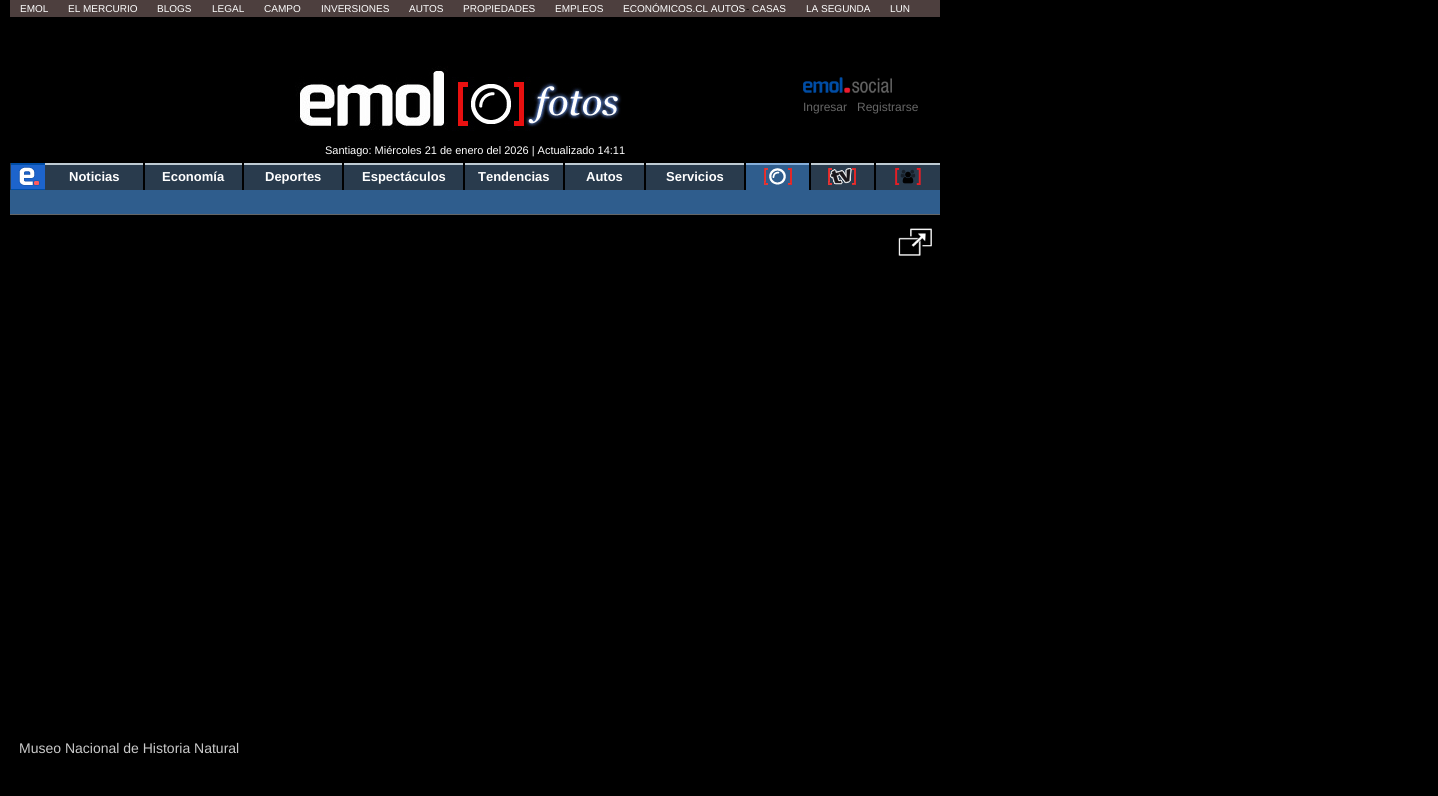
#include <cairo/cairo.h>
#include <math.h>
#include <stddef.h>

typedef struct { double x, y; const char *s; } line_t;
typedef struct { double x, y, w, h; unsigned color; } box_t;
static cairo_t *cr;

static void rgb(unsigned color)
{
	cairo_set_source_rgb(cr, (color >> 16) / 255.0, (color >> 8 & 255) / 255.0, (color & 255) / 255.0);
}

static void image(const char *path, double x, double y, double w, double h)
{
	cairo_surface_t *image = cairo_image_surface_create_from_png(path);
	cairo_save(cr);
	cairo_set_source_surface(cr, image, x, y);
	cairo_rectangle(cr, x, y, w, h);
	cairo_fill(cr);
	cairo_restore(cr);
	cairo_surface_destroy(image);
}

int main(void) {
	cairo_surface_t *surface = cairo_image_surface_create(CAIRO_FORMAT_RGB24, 1438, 796);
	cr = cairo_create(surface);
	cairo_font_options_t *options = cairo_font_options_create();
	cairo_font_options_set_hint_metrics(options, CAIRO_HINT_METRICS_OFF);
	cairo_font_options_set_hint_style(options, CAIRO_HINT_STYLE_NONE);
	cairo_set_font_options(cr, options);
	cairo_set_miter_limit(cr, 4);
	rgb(0x000000);
	cairo_paint(cr);
	rgb(0x4d3f3e);
	cairo_rectangle(cr, 10, 0, 930, 17);
	cairo_fill(cr);
	image("img/1.png", 295, 66, 153, 64);
	image("img/2.png", 452, 77, 170, 54);
	image("img/3.png", 803, 77, 89, 16);
	rgb(0x293b4d);
	cairo_rectangle(cr, 10, 163, 1, 27);
	cairo_fill(cr);
	image("img/4.png", 11, 163, 34, 27);
	{
		static const box_t items[] = {
			{45, 165, 98, 25, 0x293b4d},
			{45, 163, 98, 2, 0xbecbd3},
			{145, 165, 97, 25, 0x293b4d},
			{145, 163, 97, 2, 0xbecbd3},
			{244, 165, 98, 25, 0x293b4d},
			{244, 163, 98, 2, 0xbecbd3},
			{344, 165, 119, 25, 0x293b4d},
			{344, 163, 119, 2, 0xbecbd3},
			{465, 165, 98, 25, 0x293b4d},
			{465, 163, 98, 2, 0xbecbd3},
			{565, 165, 79, 25, 0x293b4d},
			{565, 163, 79, 2, 0xbecbd3},
			{646, 165, 98, 25, 0x293b4d},
			{646, 163, 98, 2, 0xbecbd3},
			{746, 165, 63, 25, 0x2f5d8d},
			{746, 163, 63, 2, 0x85afdb},
		};
		for (size_t i = 0; i < sizeof items / sizeof *items; i++) {
			rgb(items[i].color);
			cairo_rectangle(cr, items[i].x, items[i].y, items[i].w, items[i].h);
			cairo_fill(cr);
		}
	}
	image("img/5.png", 764, 168, 28, 17);
	rgb(0x293b4d);
	cairo_rectangle(cr, 811, 165, 63, 25);
	cairo_fill(cr);
	rgb(0xbecbd3);
	cairo_rectangle(cr, 811, 163, 63, 2);
	cairo_fill(cr);
	image("img/6.png", 828, 168, 28, 17);
	rgb(0x293b4d);
	cairo_rectangle(cr, 876, 165, 64, 25);
	cairo_fill(cr);
	rgb(0xbecbd3);
	cairo_rectangle(cr, 876, 163, 64, 2);
	cairo_fill(cr);
	image("img/7.png", 895, 168, 26, 17);
	rgb(0x2f5d8d);
	cairo_rectangle(cr, 10, 190, 930, 24);
	cairo_fill(cr);
	rgb(0x666666);
	cairo_rectangle(cr, 10, 214, 930, 1);
	cairo_fill(cr);
	image("img/8.png", 898, 228, 34, 28);
	cairo_select_font_face(cr, "Liberation Sans", CAIRO_FONT_SLANT_NORMAL, CAIRO_FONT_WEIGHT_NORMAL);
	cairo_set_font_size(cr, 10);
	rgb(0xffffff);
	{
		static const line_t items[] = {
			{20, 12, "EMOL"},
			{68, 12, "EL MERCURIO"},
			{157, 12, "BLOGS"},
			{212, 12, "LEGAL"},
			{264, 12, "CAMPO"},
			{321, 12, "INVERSIONES"},
			{409, 12, "AUTOS"},
			{463, 12, "PROPIEDADES"},
			{555, 12, "EMPLEOS"},
			{623, 12, "ECONÓMICOS.CL AUTOS"},
		};
		for (size_t i = 0; i < sizeof items / sizeof *items; i++) {
			cairo_move_to(cr, items[i].x, items[i].y);
			cairo_show_text(cr, items[i].s);
		}
	}
	rgb(0x000000);
	cairo_move_to(cr, 746, 12);
	cairo_show_text(cr, "-");
	rgb(0xffffff);
	{
		static const line_t items[] = {
			{752, 12, "CASAS"},
			{806, 12, "LA SEGUNDA"},
			{890, 12, "LUN"},
		};
		for (size_t i = 0; i < sizeof items / sizeof *items; i++) {
			cairo_move_to(cr, items[i].x, items[i].y);
			cairo_show_text(cr, items[i].s);
		}
	}
	cairo_set_font_size(cr, 12);
	rgb(0x666666);
	cairo_move_to(cr, 803, 111);
	cairo_show_text(cr, "Ingresar");
	cairo_move_to(cr, 857, 111);
	cairo_show_text(cr, "Registrarse");
	cairo_set_font_size(cr, 11);
	rgb(0xffffff);
	cairo_move_to(cr, 325, 154);
	cairo_show_text(cr, "Santiago: Miércoles 21 de enero del 2026 | Actualizado 14:11");
	cairo_select_font_face(cr, "Liberation Sans", CAIRO_FONT_SLANT_NORMAL, CAIRO_FONT_WEIGHT_BOLD);
	cairo_set_font_size(cr, 13);
	{
		static const line_t items[] = {
			{69, 181, "Noticias"},
			{162, 181, "Economía"},
			{265, 181, "Deportes"},
			{362, 181, "Espectáculos"},
			{478, 181, "Tendencias"},
			{586, 181, "Autos"},
			{666, 181, "Servicios"},
		};
		for (size_t i = 0; i < sizeof items / sizeof *items; i++) {
			cairo_move_to(cr, items[i].x, items[i].y);
			cairo_show_text(cr, items[i].s);
		}
	}
	cairo_select_font_face(cr, "Liberation Sans", CAIRO_FONT_SLANT_NORMAL, CAIRO_FONT_WEIGHT_NORMAL);
	cairo_set_font_size(cr, 14);
	rgb(0xcacaca);
	cairo_move_to(cr, 19, 753);
	cairo_show_text(cr, "Museo Nacional de Historia Natural");
	cairo_surface_write_to_png(surface, "page.png");
	cairo_font_options_destroy(options);
	cairo_destroy(cr);
	cairo_surface_destroy(surface);
	return 0;
}
